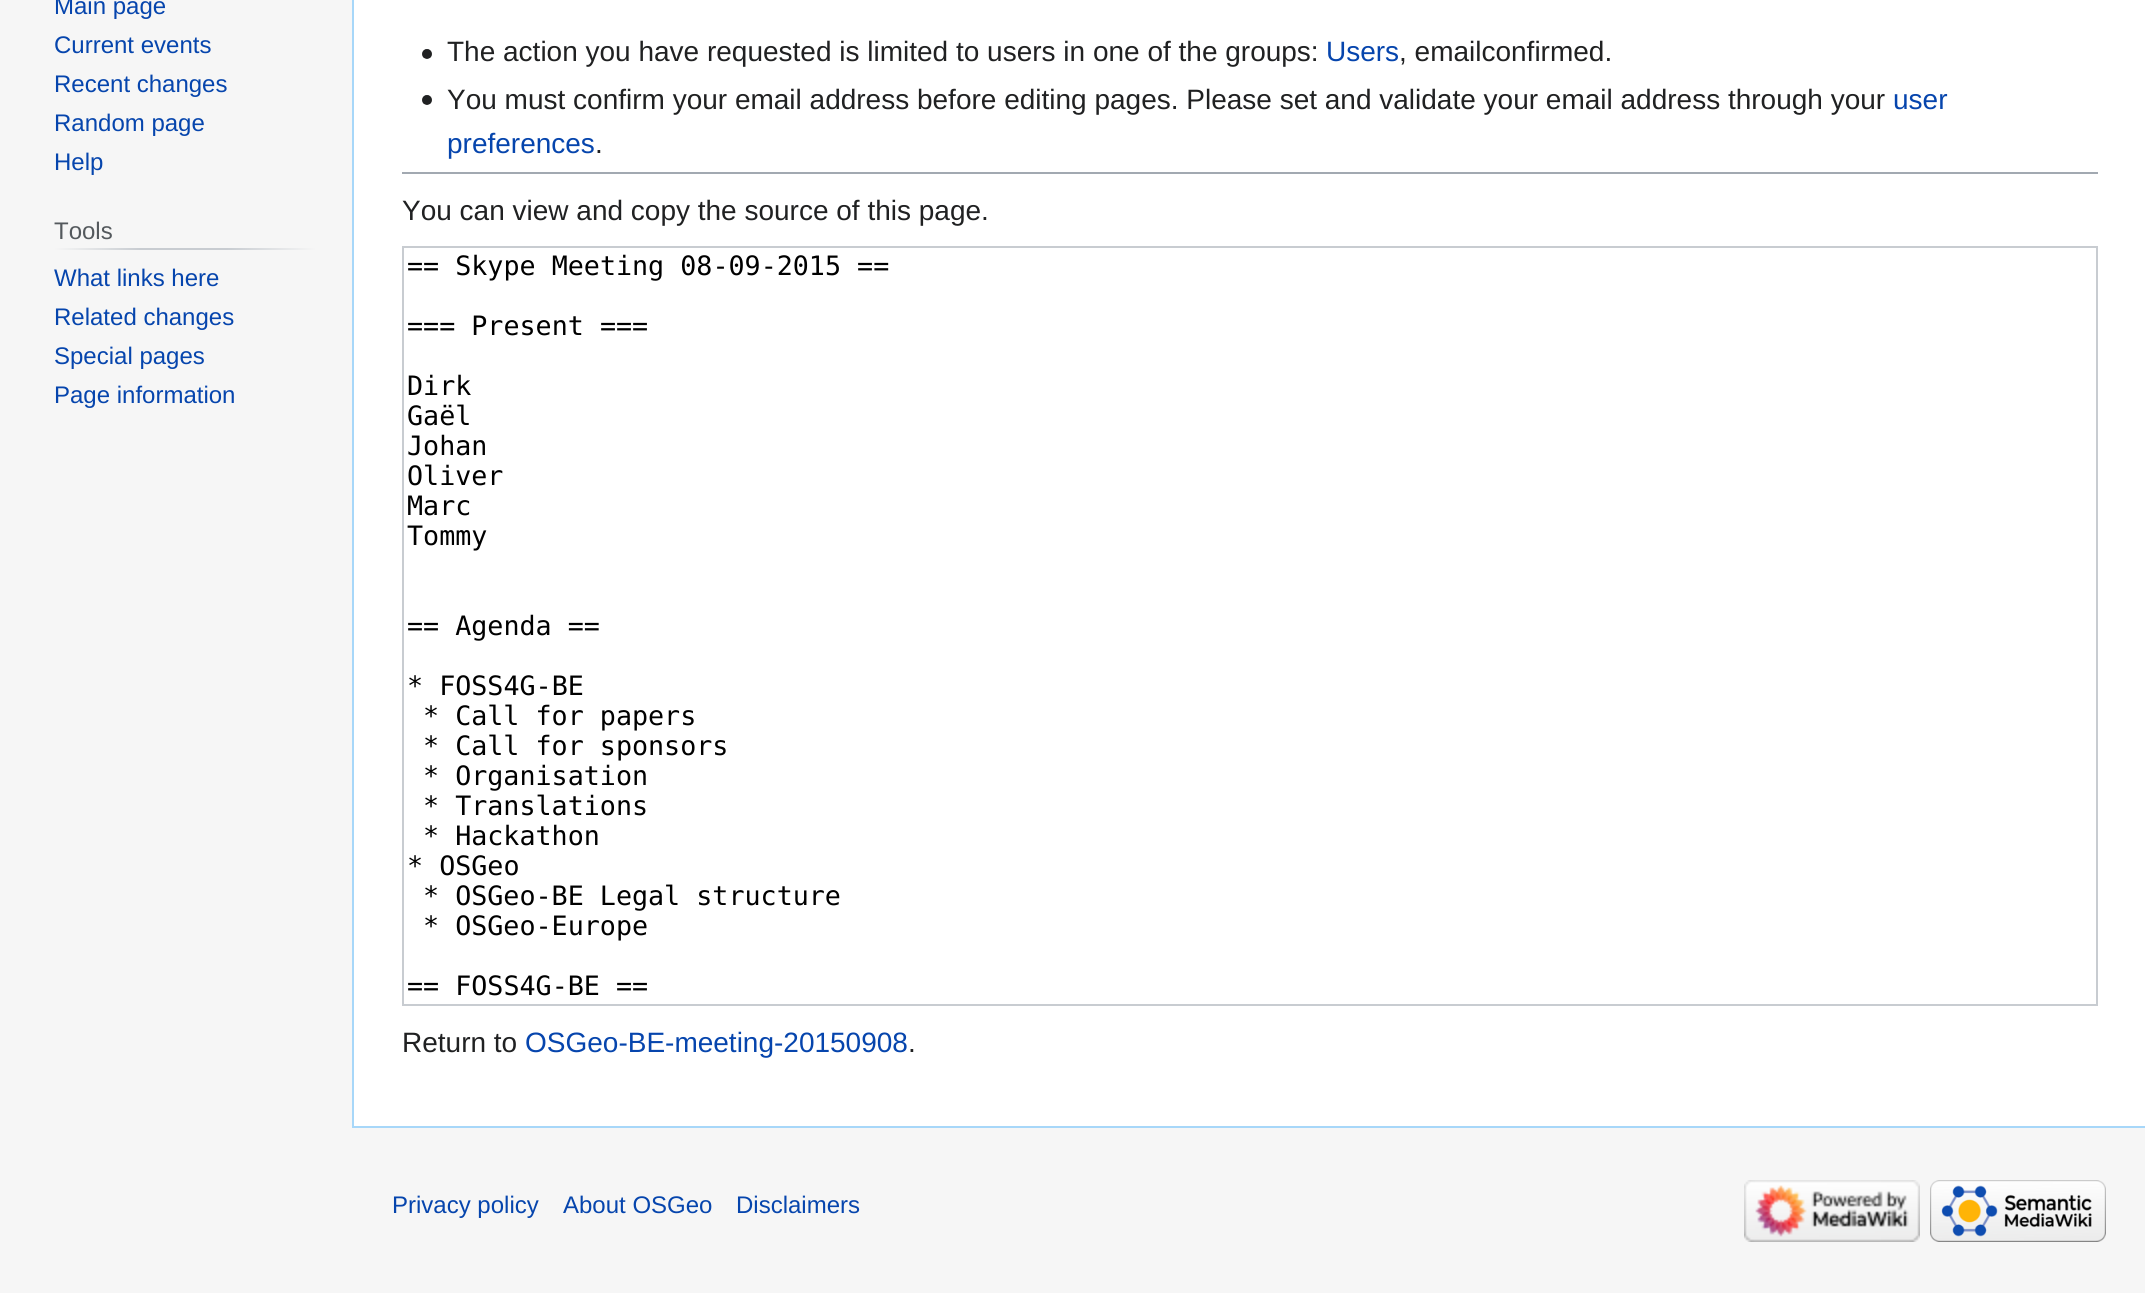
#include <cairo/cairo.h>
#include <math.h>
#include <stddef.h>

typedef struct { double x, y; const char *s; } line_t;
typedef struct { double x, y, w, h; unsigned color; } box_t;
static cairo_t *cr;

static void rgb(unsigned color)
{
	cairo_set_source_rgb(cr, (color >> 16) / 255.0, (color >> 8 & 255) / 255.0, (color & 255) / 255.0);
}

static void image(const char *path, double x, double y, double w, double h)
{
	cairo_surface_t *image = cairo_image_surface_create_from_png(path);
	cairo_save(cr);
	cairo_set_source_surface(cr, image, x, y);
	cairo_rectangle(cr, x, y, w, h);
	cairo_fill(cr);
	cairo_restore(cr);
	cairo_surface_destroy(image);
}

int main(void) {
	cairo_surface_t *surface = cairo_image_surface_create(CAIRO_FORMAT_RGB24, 2145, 1293);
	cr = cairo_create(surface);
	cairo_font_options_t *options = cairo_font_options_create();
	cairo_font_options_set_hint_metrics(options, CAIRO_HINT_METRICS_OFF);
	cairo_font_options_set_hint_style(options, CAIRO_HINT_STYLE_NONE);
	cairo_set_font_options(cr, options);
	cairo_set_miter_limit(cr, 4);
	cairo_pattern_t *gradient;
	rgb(0xf6f6f6);
	cairo_paint(cr);
	gradient = cairo_pattern_create_linear(54, 249, 316, 249);
	cairo_pattern_add_color_stop_rgba(gradient, 0, 0.965, 0.965, 0.965, 1);
	cairo_pattern_add_color_stop_rgba(gradient, 0.33, 0.784, 0.8, 0.82, 1);
	cairo_pattern_add_color_stop_rgba(gradient, 0.66, 0.784, 0.8, 0.82, 1);
	cairo_pattern_add_color_stop_rgba(gradient, 1, 0.965, 0.965, 0.965, 1);
	cairo_set_source(cr, gradient);
	cairo_pattern_destroy(gradient);
	cairo_rectangle(cr, 54, 248, 262, 2);
	cairo_fill(cr);
	{
		static const box_t items[] = {
			{354, 0, 1791, 1126, 0xffffff},
			{352, 1126, 1793, 2, 0xa7d7f9},
			{352, 0, 2, 1128, 0xa7d7f9},
		};
		for (size_t i = 0; i < sizeof items / sizeof *items; i++) {
			rgb(items[i].color);
			cairo_rectangle(cr, items[i].x, items[i].y, items[i].w, items[i].h);
			cairo_fill(cr);
		}
	}
	image("img/1.png", 422, 49, 10, 10);
	image("img/1.png", 422, 95, 10, 10);
	rgb(0xa2a9b1);
	cairo_rectangle(cr, 402, 172, 1696, 2);
	cairo_fill(cr);
	cairo_rectangle(cr, 403, 247, 1694, 758);
	rgb(0xc8ccd1);
	cairo_stroke(cr);
	image("img/2.png", 1744, 1180, 176, 62);
	image("img/3.png", 1930, 1180, 176, 62);
	cairo_select_font_face(cr, "Liberation Sans", CAIRO_FONT_SLANT_NORMAL, CAIRO_FONT_WEIGHT_NORMAL);
	cairo_set_font_size(cr, 24);
	rgb(0x0645ad);
	{
		static const line_t items[] = {
			{54, 14, "Main page"},
			{54, 53, "Current events"},
			{54, 92, "Recent changes"},
			{54, 131, "Random page"},
			{54, 170, "Help"},
		};
		for (size_t i = 0; i < sizeof items / sizeof *items; i++) {
			cairo_move_to(cr, items[i].x, items[i].y);
			cairo_show_text(cr, items[i].s);
		}
	}
	rgb(0x54595d);
	cairo_move_to(cr, 54, 239);
	cairo_show_text(cr, "Tools");
	rgb(0x0645ad);
	{
		static const line_t items[] = {
			{54, 286, "What links here"},
			{54, 325, "Related changes"},
			{54, 364, "Special pages"},
			{54, 403, "Page information"},
		};
		for (size_t i = 0; i < sizeof items / sizeof *items; i++) {
			cairo_move_to(cr, items[i].x, items[i].y);
			cairo_show_text(cr, items[i].s);
		}
	}
	cairo_set_font_size(cr, 28);
	rgb(0x202122);
	cairo_move_to(cr, 447, 61);
	cairo_show_text(cr, "The action you have requested is limited to users in one of the groups:");
	rgb(0x0645ad);
	cairo_move_to(cr, 1326, 61);
	cairo_show_text(cr, "Users");
	rgb(0x202122);
	cairo_move_to(cr, 1399, 61);
	cairo_show_text(cr, ", emailconfirmed.");
	cairo_move_to(cr, 447, 109);
	cairo_show_text(cr, "You must confirm your email address before editing pages. Please set and validate your email address through your");
	rgb(0x0645ad);
	cairo_move_to(cr, 1893, 109);
	cairo_show_text(cr, "user");
	cairo_move_to(cr, 447, 153);
	cairo_show_text(cr, "preferences");
	rgb(0x202122);
	cairo_move_to(cr, 595, 153);
	cairo_show_text(cr, ".");
	cairo_move_to(cr, 402, 220);
	cairo_show_text(cr, "You can view and copy the source of this page.");
	cairo_select_font_face(cr, "DejaVu Sans Mono", CAIRO_FONT_SLANT_NORMAL, CAIRO_FONT_WEIGHT_NORMAL);
	cairo_set_font_size(cr, 26.7);
	rgb(0x000000);
	{
		static const line_t items[] = {
			{407, 275, "== Skype Meeting 08-09-2015 =="},
			{407, 335, "=== Present ==="},
			{407, 395, "Dirk"},
			{407, 425, "Gaël"},
			{407, 455, "Johan"},
			{407, 485, "Oliver"},
			{407, 515, "Marc"},
			{407, 545, "Tommy"},
			{407, 635, "== Agenda =="},
			{407, 695, "* FOSS4G-BE"},
			{423, 725, "* Call for papers"},
			{423, 755, "* Call for sponsors"},
			{423, 785, "* Organisation"},
			{423, 815, "* Translations"},
			{423, 845, "* Hackathon"},
			{407, 875, "* OSGeo"},
			{423, 905, "* OSGeo-BE Legal structure"},
			{423, 935, "* OSGeo-Europe"},
			{407, 995, "== FOSS4G-BE =="},
		};
		for (size_t i = 0; i < sizeof items / sizeof *items; i++) {
			cairo_move_to(cr, items[i].x, items[i].y);
			cairo_show_text(cr, items[i].s);
		}
	}
	cairo_select_font_face(cr, "Liberation Sans", CAIRO_FONT_SLANT_NORMAL, CAIRO_FONT_WEIGHT_NORMAL);
	cairo_set_font_size(cr, 28);
	rgb(0x202122);
	cairo_move_to(cr, 402, 1052);
	cairo_show_text(cr, "Return to");
	rgb(0x0645ad);
	cairo_move_to(cr, 525, 1052);
	cairo_show_text(cr, "OSGeo-BE-meeting-20150908");
	rgb(0x202122);
	cairo_move_to(cr, 908, 1052);
	cairo_show_text(cr, ".");
	cairo_set_font_size(cr, 24);
	rgb(0x0645ad);
	{
		static const line_t items[] = {
			{392, 1213, "Privacy policy"},
			{563, 1213, "About OSGeo"},
			{736, 1213, "Disclaimers"},
		};
		for (size_t i = 0; i < sizeof items / sizeof *items; i++) {
			cairo_move_to(cr, items[i].x, items[i].y);
			cairo_show_text(cr, items[i].s);
		}
	}
	cairo_surface_write_to_png(surface, "page.png");
	cairo_font_options_destroy(options);
	cairo_destroy(cr);
	cairo_surface_destroy(surface);
	return 0;
}
